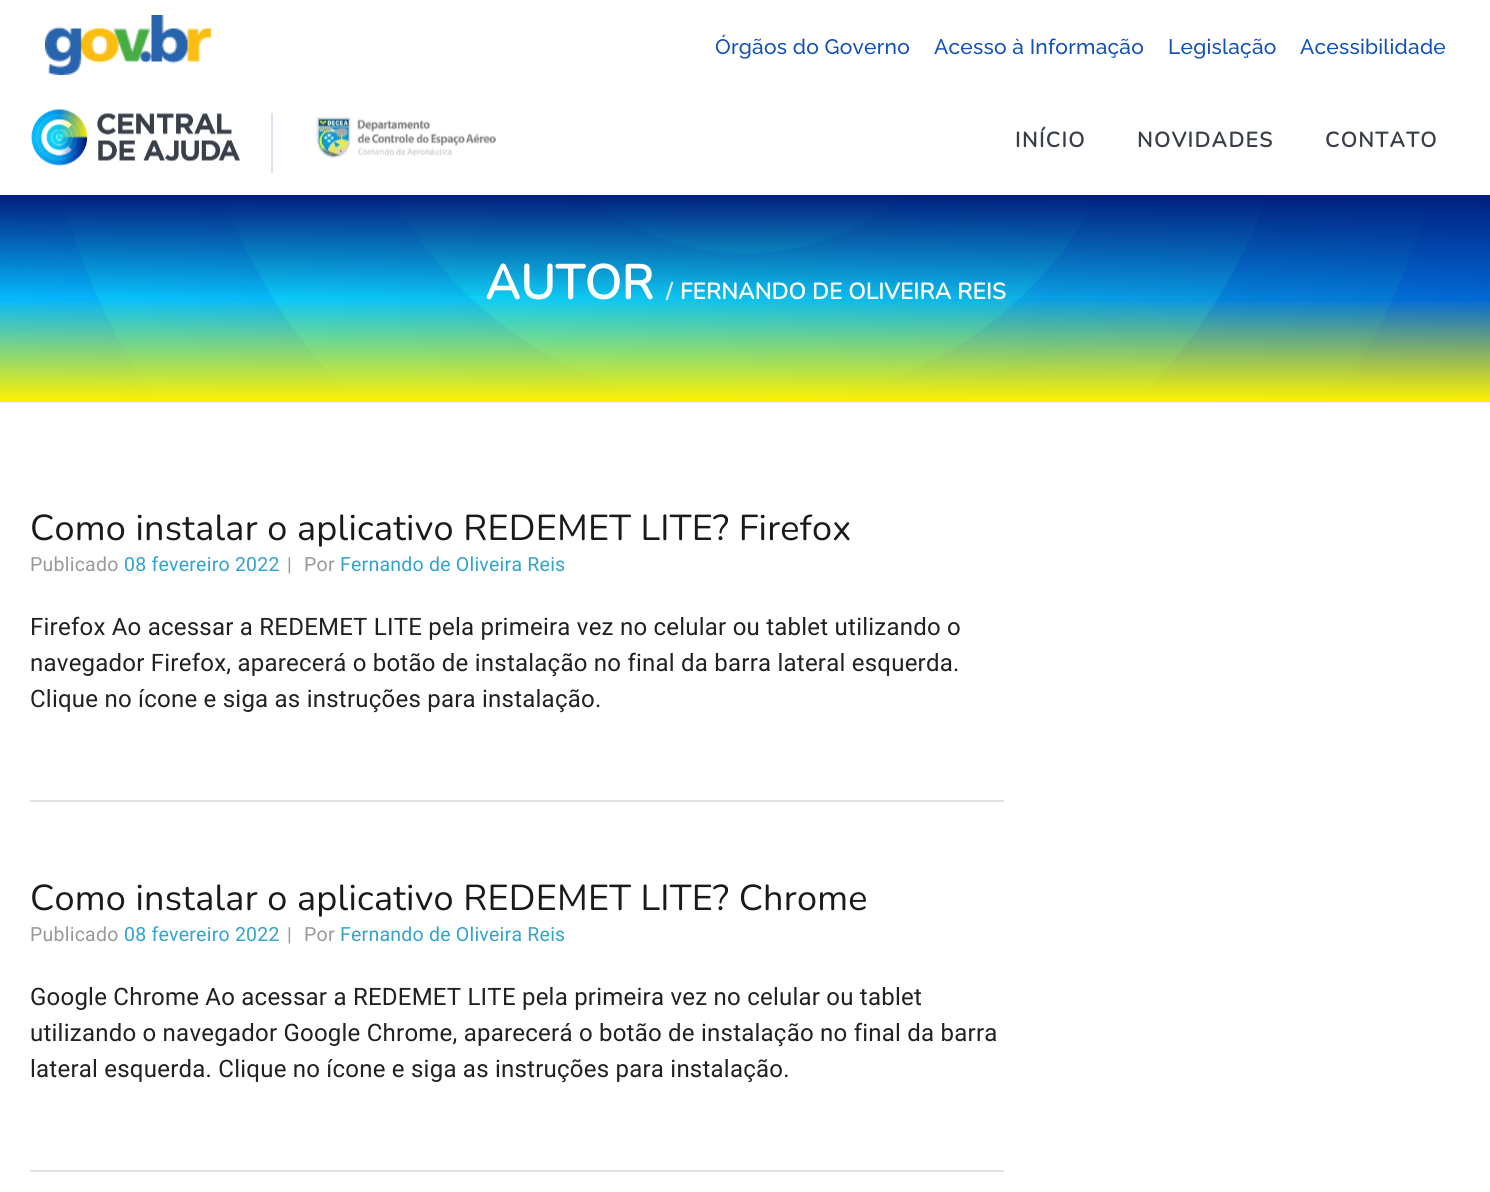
#include <cairo/cairo.h>
#include <math.h>
#include <stddef.h>

typedef struct { double x, y; const char *s; } line_t;
static cairo_t *cr;

static void rgb(unsigned color)
{
	cairo_set_source_rgb(cr, (color >> 16) / 255.0, (color >> 8 & 255) / 255.0, (color & 255) / 255.0);
}

static void tracked(double x, double y, const char *s, double letter, double word)
{
	cairo_move_to(cr, x, y);
	while (*s) {
		char ch[5] = {0};
		int n = 0;
		do ch[n++] = *s++; while ((*s & 0xC0) == 0x80);
		cairo_show_text(cr, ch);
		cairo_rel_move_to(cr, letter + word * (*ch == ' '), 0);
	}
}

static void image(const char *path, double x, double y, double w, double h)
{
	cairo_surface_t *image = cairo_image_surface_create_from_png(path);
	cairo_save(cr);
	cairo_set_source_surface(cr, image, x, y);
	cairo_rectangle(cr, x, y, w, h);
	cairo_fill(cr);
	cairo_restore(cr);
	cairo_surface_destroy(image);
}

int main(void) {
	cairo_surface_t *surface = cairo_image_surface_create(CAIRO_FORMAT_RGB24, 1490, 1192);
	cr = cairo_create(surface);
	cairo_font_options_t *options = cairo_font_options_create();
	cairo_font_options_set_hint_metrics(options, CAIRO_HINT_METRICS_OFF);
	cairo_font_options_set_hint_style(options, CAIRO_HINT_STYLE_NONE);
	cairo_set_font_options(cr, options);
	cairo_set_miter_limit(cr, 4);
	cairo_pattern_t *gradient;
	rgb(0xffffff);
	cairo_paint(cr);
	image("img/1.png", 45, 15, 166, 60);
	image("img/2.png", 31, 109, 209, 57);
	rgb(0xdce3f0);
	cairo_rectangle(cr, 271, 113, 2, 60);
	cairo_fill(cr);
	image("img/3.png", 316, 117, 180, 42);
	image("img/4.png", 0, 196, 1490, 207);
	gradient = cairo_pattern_create_linear(746, 195, 746, 402);
	cairo_pattern_add_color_stop_rgba(gradient, 0, 0.004, 0.118, 0.494, 1);
	cairo_pattern_add_color_stop_rgba(gradient, 0.5, 0.004, 0.118, 0.494, 0);
	cairo_set_source(cr, gradient);
	cairo_pattern_destroy(gradient);
	cairo_rectangle(cr, 0, 195, 1490, 101);
	cairo_fill(cr);
	gradient = cairo_pattern_create_linear(746, 402, 746, 195);
	cairo_pattern_add_color_stop_rgba(gradient, 0, 1, 0.949, 0, 1);
	cairo_pattern_add_color_stop_rgba(gradient, 0.5, 1, 0.949, 0, 0);
	cairo_set_source(cr, gradient);
	cairo_pattern_destroy(gradient);
	cairo_rectangle(cr, 0, 301, 1490, 101);
	cairo_fill(cr);
	rgb(0xdfe4e6);
	cairo_rectangle(cr, 30, 800, 974, 2);
	cairo_fill(cr);
	cairo_rectangle(cr, 30, 1170, 974, 2);
	cairo_fill(cr);
	cairo_select_font_face(cr, "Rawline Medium", CAIRO_FONT_SLANT_NORMAL, CAIRO_FONT_WEIGHT_NORMAL);
	cairo_set_font_size(cr, 21);
	rgb(0x1351b4);
	{
		static const line_t items[] = {
			{715, 54, "Órgãos do Governo"},
			{934, 54, "Acesso à Informação"},
			{1168, 54, "Legislação"},
			{1300, 54, "Acessibilidade"},
		};
		for (size_t i = 0; i < sizeof items / sizeof *items; i++) {
			tracked(items[i].x, items[i].y, items[i].s, 0.23, 0);
		}
	}
	cairo_select_font_face(cr, "Nunito", CAIRO_FONT_SLANT_NORMAL, CAIRO_FONT_WEIGHT_BOLD);
	rgb(0x383f49);
	{
		static const line_t items[] = {
			{1015, 147, "INÍCIO"},
			{1137, 147, "NOVIDADES"},
			{1325, 147, "CONTATO"},
		};
		for (size_t i = 0; i < sizeof items / sizeof *items; i++) {
			tracked(items[i].x, items[i].y, items[i].s, 1.5, 0);
		}
	}
	cairo_set_font_size(cr, 48);
	rgb(0xffffff);
	tracked(485, 299, "AUTOR", 0.23, 0);
	cairo_set_font_size(cr, 22.5);
	rgb(0xcff1fa);
	tracked(666, 299, "/", 0.23, 0);
	rgb(0xffffff);
	tracked(680, 299, "FERNANDO DE OLIVEIRA REIS", 0.23, 0);
	cairo_select_font_face(cr, "Nunito ExtraLight", CAIRO_FONT_SLANT_NORMAL, CAIRO_FONT_WEIGHT_NORMAL);
	cairo_set_font_size(cr, 36);
	rgb(0x1a1a1a);
	tracked(30, 540, "Como instalar o aplicativo REDEMET LITE? Firefox", 0.23, 0);
	cairo_select_font_face(cr, "Roboto", CAIRO_FONT_SLANT_NORMAL, CAIRO_FONT_WEIGHT_NORMAL);
	cairo_set_font_size(cr, 19.5);
	rgb(0x999999);
	tracked(30, 571, "Publicado", 0.23, 0);
	rgb(0x32a3cb);
	tracked(124, 571, "08 fevereiro 2022", 0.23, 0);
	rgb(0x999999);
	tracked(287, 571, "|", 0.23, 0);
	tracked(304, 571, "Por", 0.23, 0);
	rgb(0x32a3cb);
	tracked(340, 571, "Fernando de Oliveira Reis", 0.23, 0);
	cairo_set_font_size(cr, 24);
	rgb(0x212121);
	{
		static const line_t items[] = {
			{30, 635, "Firefox Ao acessar a REDEMET LITE pela primeira vez no celular ou tablet utilizando o"},
			{30, 671, "navegador Firefox, aparecerá o botão de instalação no final da barra lateral esquerda."},
			{30, 707, "Clique no ícone e siga as instruções para instalação."},
		};
		for (size_t i = 0; i < sizeof items / sizeof *items; i++) {
			tracked(items[i].x, items[i].y, items[i].s, 0.23, 0);
		}
	}
	cairo_select_font_face(cr, "Nunito ExtraLight", CAIRO_FONT_SLANT_NORMAL, CAIRO_FONT_WEIGHT_NORMAL);
	cairo_set_font_size(cr, 36);
	rgb(0x1a1a1a);
	tracked(30, 910, "Como instalar o aplicativo REDEMET LITE? Chrome", 0.23, 0);
	cairo_select_font_face(cr, "Roboto", CAIRO_FONT_SLANT_NORMAL, CAIRO_FONT_WEIGHT_NORMAL);
	cairo_set_font_size(cr, 19.5);
	rgb(0x999999);
	tracked(30, 941, "Publicado", 0.23, 0);
	rgb(0x32a3cb);
	tracked(124, 941, "08 fevereiro 2022", 0.23, 0);
	rgb(0x999999);
	tracked(287, 941, "|", 0.23, 0);
	tracked(304, 941, "Por", 0.23, 0);
	rgb(0x32a3cb);
	tracked(340, 941, "Fernando de Oliveira Reis", 0.23, 0);
	cairo_set_font_size(cr, 24);
	rgb(0x212121);
	{
		static const line_t items[] = {
			{30, 1005, "Google Chrome Ao acessar a REDEMET LITE pela primeira vez no celular ou tablet"},
			{30, 1041, "utilizando o navegador Google Chrome, aparecerá o botão de instalação no final da barra"},
			{30, 1077, "lateral esquerda. Clique no ícone e siga as instruções para instalação."},
		};
		for (size_t i = 0; i < sizeof items / sizeof *items; i++) {
			tracked(items[i].x, items[i].y, items[i].s, 0.23, 0);
		}
	}
	cairo_surface_write_to_png(surface, "page.png");
	cairo_font_options_destroy(options);
	cairo_destroy(cr);
	cairo_surface_destroy(surface);
	return 0;
}
